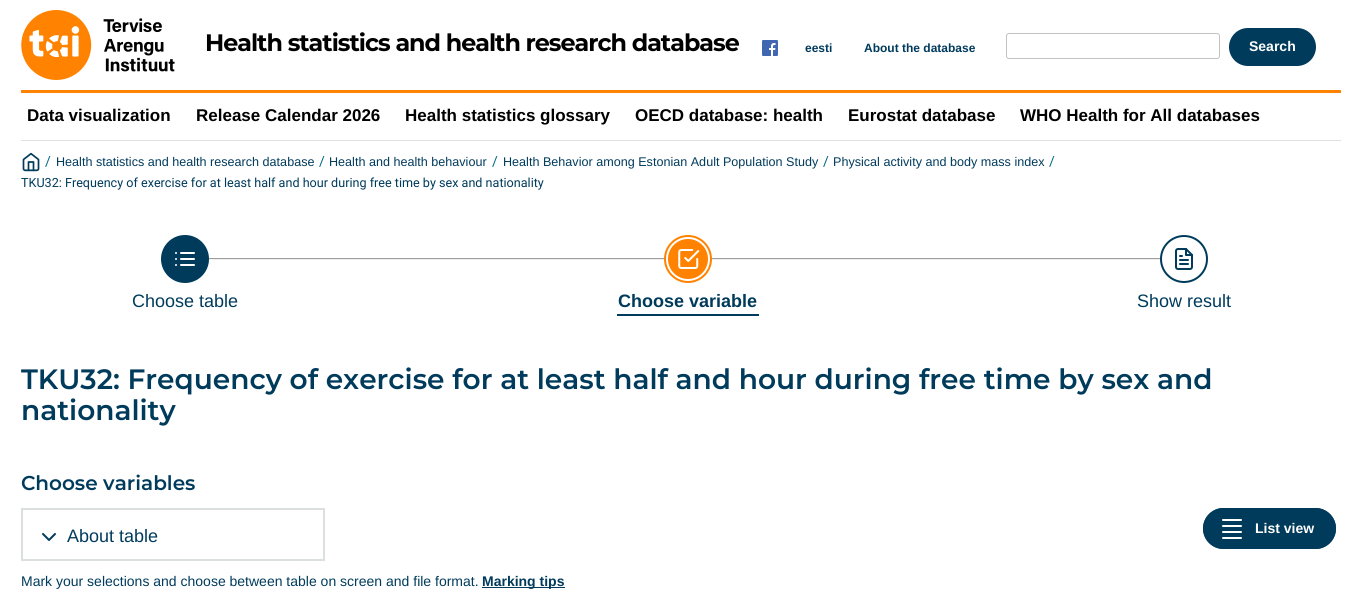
#include <cairo/cairo.h>
#include <math.h>
#include <stddef.h>

typedef struct { double x, y; const char *s; } line_t;
typedef struct { double x, y, w, h; unsigned color; } box_t;
static cairo_t *cr;

static void rgb(unsigned color)
{
	cairo_set_source_rgb(cr, (color >> 16) / 255.0, (color >> 8 & 255) / 255.0, (color & 255) / 255.0);
}

static void tracked(double x, double y, const char *s, double letter, double word)
{
	cairo_move_to(cr, x, y);
	while (*s) {
		char ch[5] = {0};
		int n = 0;
		do ch[n++] = *s++; while ((*s & 0xC0) == 0x80);
		cairo_show_text(cr, ch);
		cairo_rel_move_to(cr, letter + word * (*ch == ' '), 0);
	}
}

static void rrect(double x, double y, double w, double h, double r)
{
	cairo_new_sub_path(cr);
	cairo_arc(cr, x + w - r, y + h - r, r, 0, M_PI / 2);
	cairo_arc(cr, x + r, y + h - r, r, M_PI / 2, M_PI);
	cairo_arc(cr, x + r, y + r, r, M_PI, 1.5 * M_PI);
	cairo_arc(cr, x + w - r, y + r, r, 1.5 * M_PI, 2 * M_PI);
	cairo_close_path(cr);
}

static void image(const char *path, double x, double y, double w, double h)
{
	cairo_surface_t *image = cairo_image_surface_create_from_png(path);
	cairo_save(cr);
	cairo_set_source_surface(cr, image, x, y);
	cairo_rectangle(cr, x, y, w, h);
	cairo_fill(cr);
	cairo_restore(cr);
	cairo_surface_destroy(image);
}

int main(void) {
	cairo_surface_t *surface = cairo_image_surface_create(CAIRO_FORMAT_RGB24, 1362, 600);
	cr = cairo_create(surface);
	cairo_font_options_t *options = cairo_font_options_create();
	cairo_font_options_set_hint_metrics(options, CAIRO_HINT_METRICS_OFF);
	cairo_font_options_set_hint_style(options, CAIRO_HINT_STYLE_NONE);
	cairo_set_font_options(cr, options);
	cairo_set_miter_limit(cr, 4);
	rgb(0xffffff);
	cairo_paint(cr);
	rgb(0xff8200);
	cairo_rectangle(cr, 21, 90, 1320, 3);
	cairo_fill(cr);
	image("img/1.png", 21, 10, 154, 70);
	image("img/2.png", 762, 40, 16, 16);
	rrect(1006.5, 33.5, 213, 25, 2.5);
	rgb(0xc2c2c2);
	cairo_set_line_width(cr, 1);
	cairo_stroke(cr);
	rgb(0x003b5c);
	rrect(1230, 29, 85, 36, 18);
	cairo_fill_preserve(cr);
	cairo_set_line_width(cr, 2);
	cairo_stroke(cr);
	rgb(0xdfdfdf);
	cairo_rectangle(cr, 21, 140, 1320, 1);
	cairo_fill(cr);
	image("img/3.png", 22, 152, 18, 20);
	{
		static const box_t items[] = {
			{208, 258, 456, 1, 0x9f9f9f},
			{208, 259, 456, 1, 0xeeeeee},
			{712, 258, 448, 1, 0x9f9f9f},
			{712, 259, 448, 1, 0xeeeeee},
		};
		for (size_t i = 0; i < sizeof items / sizeof *items; i++) {
			rgb(items[i].color);
			cairo_rectangle(cr, items[i].x, items[i].y, items[i].w, items[i].h);
			cairo_fill(cr);
		}
	}
	image("img/4.png", 161, 235, 48, 48);
	image("img/5.png", 664, 235, 48, 48);
	rgb(0x003b5c);
	cairo_rectangle(cr, 617, 314, 142, 2);
	cairo_fill(cr);
	image("img/6.png", 1160, 235, 48, 48);
	cairo_rectangle(cr, 22, 509, 302, 51);
	rgb(0xdcdfe0);
	cairo_stroke(cr);
	cairo_new_path(cr);
	cairo_move_to(cr, 43, 534);
	cairo_line_to(cr, 49, 540);
	cairo_line_to(cr, 55, 534);
	rgb(0x003b5c);
	cairo_set_line_cap(cr, CAIRO_LINE_CAP_ROUND);
	cairo_set_line_join(cr, CAIRO_LINE_JOIN_ROUND);
	cairo_stroke(cr);
	rrect(1203, 508, 133, 41, 20.5);
	cairo_fill(cr);
	image("img/7.png", 1222, 519, 20, 20);
	rrect(1204, 509, 131, 39, 19.5);
	cairo_set_line_cap(cr, CAIRO_LINE_CAP_BUTT);
	cairo_set_line_join(cr, CAIRO_LINE_JOIN_MITER);
	cairo_stroke(cr);
	cairo_rectangle(cr, 482, 587, 83, 1);
	cairo_fill(cr);
	cairo_select_font_face(cr, "Montserrat", CAIRO_FONT_SLANT_NORMAL, CAIRO_FONT_WEIGHT_BOLD);
	cairo_set_font_size(cr, 23.8);
	rgb(0x000000);
	tracked(205, 51, "Health statistics and health research database", -1, 0);
	cairo_select_font_face(cr, "Liberation Sans", CAIRO_FONT_SLANT_NORMAL, CAIRO_FONT_WEIGHT_BOLD);
	cairo_set_font_size(cr, 12);
	rgb(0x003b5c);
	cairo_move_to(cr, 805, 52);
	cairo_show_text(cr, "eesti");
	cairo_move_to(cr, 864, 52);
	cairo_show_text(cr, "About the database");
	cairo_set_font_size(cr, 14);
	rgb(0xffffff);
	cairo_move_to(cr, 1249, 51);
	cairo_show_text(cr, "Search");
	cairo_set_font_size(cr, 17);
	rgb(0x000000);
	{
		static const line_t items[] = {
			{27, 121, "Data visualization"},
			{196, 121, "Release Calendar 2026"},
			{405, 121, "Health statistics glossary"},
			{635, 121, "OECD database: health"},
			{848, 121, "Eurostat database"},
			{1020, 121, "WHO Health for All databases"},
		};
		for (size_t i = 0; i < sizeof items / sizeof *items; i++) {
			cairo_move_to(cr, items[i].x, items[i].y);
			cairo_show_text(cr, items[i].s);
		}
	}
	cairo_select_font_face(cr, "Roboto", CAIRO_FONT_SLANT_NORMAL, CAIRO_FONT_WEIGHT_NORMAL);
	cairo_set_font_size(cr, 14);
	rgb(0x006885);
	cairo_move_to(cr, 45, 166);
	cairo_show_text(cr, "/");
	cairo_select_font_face(cr, "Liberation Sans", CAIRO_FONT_SLANT_NORMAL, CAIRO_FONT_WEIGHT_NORMAL);
	cairo_set_font_size(cr, 12.6);
	rgb(0x003b5c);
	cairo_move_to(cr, 56, 166);
	cairo_show_text(cr, "Health statistics and health research database");
	cairo_select_font_face(cr, "Roboto", CAIRO_FONT_SLANT_NORMAL, CAIRO_FONT_WEIGHT_NORMAL);
	cairo_set_font_size(cr, 14);
	rgb(0x006885);
	cairo_move_to(cr, 319, 166);
	cairo_show_text(cr, "/");
	cairo_select_font_face(cr, "Liberation Sans", CAIRO_FONT_SLANT_NORMAL, CAIRO_FONT_WEIGHT_NORMAL);
	cairo_set_font_size(cr, 12.6);
	rgb(0x003b5c);
	cairo_move_to(cr, 329, 166);
	cairo_show_text(cr, "Health and health behaviour");
	cairo_select_font_face(cr, "Roboto", CAIRO_FONT_SLANT_NORMAL, CAIRO_FONT_WEIGHT_NORMAL);
	cairo_set_font_size(cr, 14);
	rgb(0x006885);
	cairo_move_to(cr, 492, 166);
	cairo_show_text(cr, "/");
	cairo_select_font_face(cr, "Liberation Sans", CAIRO_FONT_SLANT_NORMAL, CAIRO_FONT_WEIGHT_NORMAL);
	cairo_set_font_size(cr, 12.6);
	rgb(0x003b5c);
	cairo_move_to(cr, 503, 166);
	cairo_show_text(cr, "Health Behavior among Estonian Adult Population Study");
	cairo_select_font_face(cr, "Roboto", CAIRO_FONT_SLANT_NORMAL, CAIRO_FONT_WEIGHT_NORMAL);
	cairo_set_font_size(cr, 14);
	rgb(0x006885);
	cairo_move_to(cr, 823, 166);
	cairo_show_text(cr, "/");
	cairo_select_font_face(cr, "Liberation Sans", CAIRO_FONT_SLANT_NORMAL, CAIRO_FONT_WEIGHT_NORMAL);
	cairo_set_font_size(cr, 12.6);
	rgb(0x003b5c);
	cairo_move_to(cr, 833, 166);
	cairo_show_text(cr, "Physical activity and body mass index");
	cairo_select_font_face(cr, "Roboto", CAIRO_FONT_SLANT_NORMAL, CAIRO_FONT_WEIGHT_NORMAL);
	cairo_set_font_size(cr, 14);
	rgb(0x006885);
	cairo_move_to(cr, 1049, 166);
	cairo_show_text(cr, "/");
	cairo_set_font_size(cr, 12.6);
	rgb(0x003b5c);
	cairo_move_to(cr, 21, 187);
	cairo_show_text(cr, "TKU32: Frequency of exercise for at least half and hour during free time by sex and nationality");
	cairo_select_font_face(cr, "Liberation Sans", CAIRO_FONT_SLANT_NORMAL, CAIRO_FONT_WEIGHT_NORMAL);
	cairo_set_font_size(cr, 18);
	cairo_move_to(cr, 132, 307);
	cairo_show_text(cr, "Choose table");
	cairo_select_font_face(cr, "Liberation Sans", CAIRO_FONT_SLANT_NORMAL, CAIRO_FONT_WEIGHT_BOLD);
	cairo_move_to(cr, 618, 307);
	cairo_show_text(cr, "Choose variable");
	cairo_select_font_face(cr, "Liberation Sans", CAIRO_FONT_SLANT_NORMAL, CAIRO_FONT_WEIGHT_NORMAL);
	cairo_move_to(cr, 1137, 307);
	cairo_show_text(cr, "Show result");
	cairo_select_font_face(cr, "Montserrat SemiBold", CAIRO_FONT_SLANT_NORMAL, CAIRO_FONT_WEIGHT_NORMAL);
	cairo_set_font_size(cr, 28);
	cairo_move_to(cr, 21, 389);
	cairo_show_text(cr, "TKU32: Frequency of exercise for at least half and hour during free time by sex and");
	cairo_move_to(cr, 21, 420);
	cairo_show_text(cr, "nationality");
	cairo_set_font_size(cr, 20);
	cairo_move_to(cr, 21, 490);
	cairo_show_text(cr, "Choose variables");
	cairo_select_font_face(cr, "Liberation Sans", CAIRO_FONT_SLANT_NORMAL, CAIRO_FONT_WEIGHT_NORMAL);
	cairo_set_font_size(cr, 18);
	cairo_move_to(cr, 67, 542);
	cairo_show_text(cr, "About table");
	cairo_select_font_face(cr, "Liberation Sans", CAIRO_FONT_SLANT_NORMAL, CAIRO_FONT_WEIGHT_BOLD);
	cairo_set_font_size(cr, 14);
	rgb(0xffffff);
	cairo_move_to(cr, 1255, 533);
	cairo_show_text(cr, "List view");
	cairo_select_font_face(cr, "Liberation Sans", CAIRO_FONT_SLANT_NORMAL, CAIRO_FONT_WEIGHT_NORMAL);
	rgb(0x003b5c);
	cairo_move_to(cr, 21, 586);
	cairo_show_text(cr, "Mark your selections and choose between table on screen and file format.");
	cairo_select_font_face(cr, "Liberation Sans", CAIRO_FONT_SLANT_NORMAL, CAIRO_FONT_WEIGHT_BOLD);
	cairo_move_to(cr, 482, 586);
	cairo_show_text(cr, "Marking tips");
	cairo_surface_write_to_png(surface, "page.png");
	cairo_font_options_destroy(options);
	cairo_destroy(cr);
	cairo_surface_destroy(surface);
	return 0;
}
